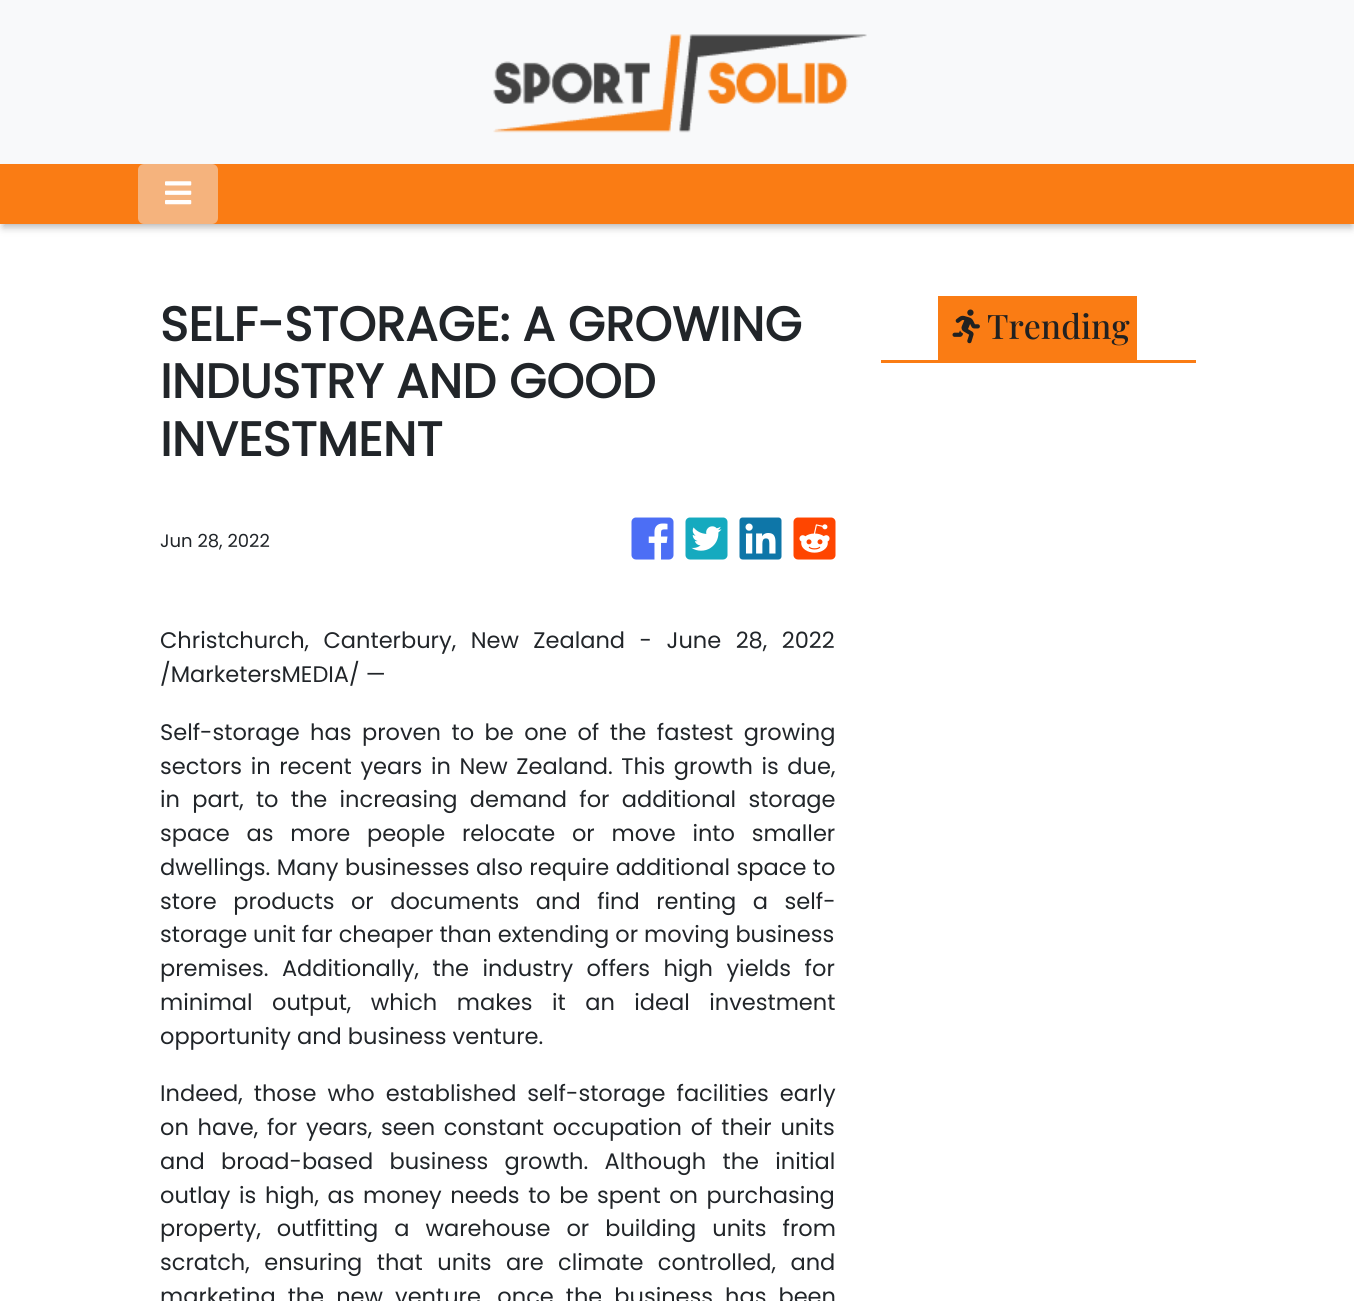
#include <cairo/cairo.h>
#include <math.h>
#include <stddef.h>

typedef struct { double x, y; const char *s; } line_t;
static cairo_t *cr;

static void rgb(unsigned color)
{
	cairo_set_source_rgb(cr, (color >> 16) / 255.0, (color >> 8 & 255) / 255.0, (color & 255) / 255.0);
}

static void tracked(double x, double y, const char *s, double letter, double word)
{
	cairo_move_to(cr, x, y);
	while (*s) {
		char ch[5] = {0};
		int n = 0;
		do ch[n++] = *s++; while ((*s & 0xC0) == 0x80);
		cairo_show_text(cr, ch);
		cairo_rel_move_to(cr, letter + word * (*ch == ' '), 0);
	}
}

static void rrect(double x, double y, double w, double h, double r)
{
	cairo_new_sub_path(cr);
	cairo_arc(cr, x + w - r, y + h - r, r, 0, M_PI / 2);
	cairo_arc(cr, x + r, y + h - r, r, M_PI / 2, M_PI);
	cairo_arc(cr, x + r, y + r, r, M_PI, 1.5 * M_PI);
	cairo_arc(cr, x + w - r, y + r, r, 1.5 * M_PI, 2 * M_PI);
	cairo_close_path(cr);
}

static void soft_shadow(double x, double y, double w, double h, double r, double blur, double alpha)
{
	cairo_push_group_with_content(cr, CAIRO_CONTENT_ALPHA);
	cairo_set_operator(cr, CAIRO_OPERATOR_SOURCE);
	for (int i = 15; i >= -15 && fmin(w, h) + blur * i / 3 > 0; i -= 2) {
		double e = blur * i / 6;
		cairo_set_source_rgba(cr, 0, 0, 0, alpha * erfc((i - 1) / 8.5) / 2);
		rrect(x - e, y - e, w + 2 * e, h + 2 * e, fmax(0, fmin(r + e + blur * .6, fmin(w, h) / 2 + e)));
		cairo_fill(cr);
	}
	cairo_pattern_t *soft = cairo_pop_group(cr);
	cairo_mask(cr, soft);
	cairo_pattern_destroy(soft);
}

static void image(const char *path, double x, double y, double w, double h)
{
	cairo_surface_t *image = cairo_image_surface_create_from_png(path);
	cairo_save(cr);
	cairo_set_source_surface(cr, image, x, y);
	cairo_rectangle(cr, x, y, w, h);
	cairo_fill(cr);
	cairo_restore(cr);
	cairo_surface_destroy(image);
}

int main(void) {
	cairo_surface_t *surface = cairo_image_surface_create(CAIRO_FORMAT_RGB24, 1354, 1301);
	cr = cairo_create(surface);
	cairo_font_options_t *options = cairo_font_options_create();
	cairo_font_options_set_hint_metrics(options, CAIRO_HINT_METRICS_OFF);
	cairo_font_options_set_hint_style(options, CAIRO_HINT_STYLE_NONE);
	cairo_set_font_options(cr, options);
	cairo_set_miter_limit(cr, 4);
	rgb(0xffffff);
	cairo_paint(cr);
	rgb(0xf8f9fa);
	cairo_rectangle(cr, 0, 0, 1354, 164);
	cairo_fill(cr);
	image("img/1.png", 493, 34, 374, 99);
	rgb(0xb6b6b6);
	soft_shadow(3, 173, 1349, 54, 0, 4, 1);
	rgb(0xfa7c14);
	cairo_rectangle(cr, 0, 164, 1354, 60);
	cairo_fill(cr);
	rgb(0xf5b37d);
	rrect(138, 164, 80, 60, 6);
	cairo_fill(cr);
	image("img/2.png", 165, 181, 27, 24);
	image("img/3.png", 631, 517, 43, 43);
	image("img/4.png", 685, 517, 43, 43);
	image("img/5.png", 739, 517, 43, 43);
	image("img/6.png", 793, 517, 43, 43);
	rgb(0xfa7c14);
	cairo_rectangle(cr, 881, 360, 315, 3);
	cairo_fill(cr);
	cairo_rectangle(cr, 938, 296, 199, 64);
	cairo_fill(cr);
	image("img/7.png", 952, 309, 28, 35);
	cairo_select_font_face(cr, "Poppins", CAIRO_FONT_SLANT_NORMAL, CAIRO_FONT_WEIGHT_BOLD);
	cairo_set_font_size(cr, 48);
	rgb(0x212529);
	{
		static const line_t items[] = {
			{160, 341, "SELF-STORAGE: A GROWING"},
			{160, 398, "INDUSTRY AND GOOD"},
			{160, 456, "INVESTMENT"},
		};
		for (size_t i = 0; i < sizeof items / sizeof *items; i++) {
			cairo_move_to(cr, items[i].x, items[i].y);
			cairo_show_text(cr, items[i].s);
		}
	}
	cairo_select_font_face(cr, "Poppins", CAIRO_FONT_SLANT_NORMAL, CAIRO_FONT_WEIGHT_NORMAL);
	cairo_set_font_size(cr, 18);
	cairo_move_to(cr, 160, 547);
	cairo_show_text(cr, "Jun 28, 2022");
	cairo_set_font_size(cr, 22.5);
	tracked(160, 648, "Christchurch, Canterbury, New Zealand - June 28, 2022", 0, 8.5);
	cairo_move_to(cr, 160, 682);
	cairo_show_text(cr, "/MarketersMEDIA/ —");
	tracked(160, 740, "Self-storage has proven to be one of the fastest growing", 0, 4.5);
	tracked(160, 774, "sectors in recent years in New Zealand. This growth is due,", 0, 2.6);
	tracked(160, 807, "in part, to the increasing demand for additional storage", 0, 6.25);
	tracked(160, 841, "space as more people relocate or move into smaller", 0, 10.75);
	tracked(160, 875, "dwellings. Many businesses also require additional space to", 0, 0.5);
	tracked(160, 909, "store products or documents and find renting a self-", 0, 10.5);
	cairo_move_to(cr, 160, 942);
	cairo_show_text(cr, "storage unit far cheaper than extending or moving business");
	tracked(160, 976, "premises. Additionally, the industry offers high yields for", 0, 7.5);
	tracked(160, 1010, "minimal output, which makes it an ideal investment", 0, 13.5);
	cairo_move_to(cr, 160, 1044);
	cairo_show_text(cr, "opportunity and business venture.");
	tracked(160, 1101, "Indeed, those who established self-storage facilities early", 0, 5);
	tracked(160, 1135, "on have, for years, seen constant occupation of their units", 0, 2.75);
	tracked(160, 1169, "and broad-based business growth. Although the initial", 0, 10.25);
	tracked(160, 1203, "outlay is high, as money needs to be spent on purchasing", 0, 2.6);
	tracked(160, 1236, "property, outfitting a warehouse or building units from", 0, 10);
	tracked(160, 1270, "scratch, ensuring that units are climate controlled, and", 0, 8.5);
	tracked(160, 1304, "marketing the new venture, once the business has been", 0, 6);
	cairo_select_font_face(cr, "Playfair Display Medium", CAIRO_FONT_SLANT_NORMAL, CAIRO_FONT_WEIGHT_NORMAL);
	cairo_set_font_size(cr, 33.75);
	rgb(0x212121);
	cairo_move_to(cr, 987, 339);
	cairo_show_text(cr, "Trending");
	cairo_surface_write_to_png(surface, "page.png");
	cairo_font_options_destroy(options);
	cairo_destroy(cr);
	cairo_surface_destroy(surface);
	return 0;
}
